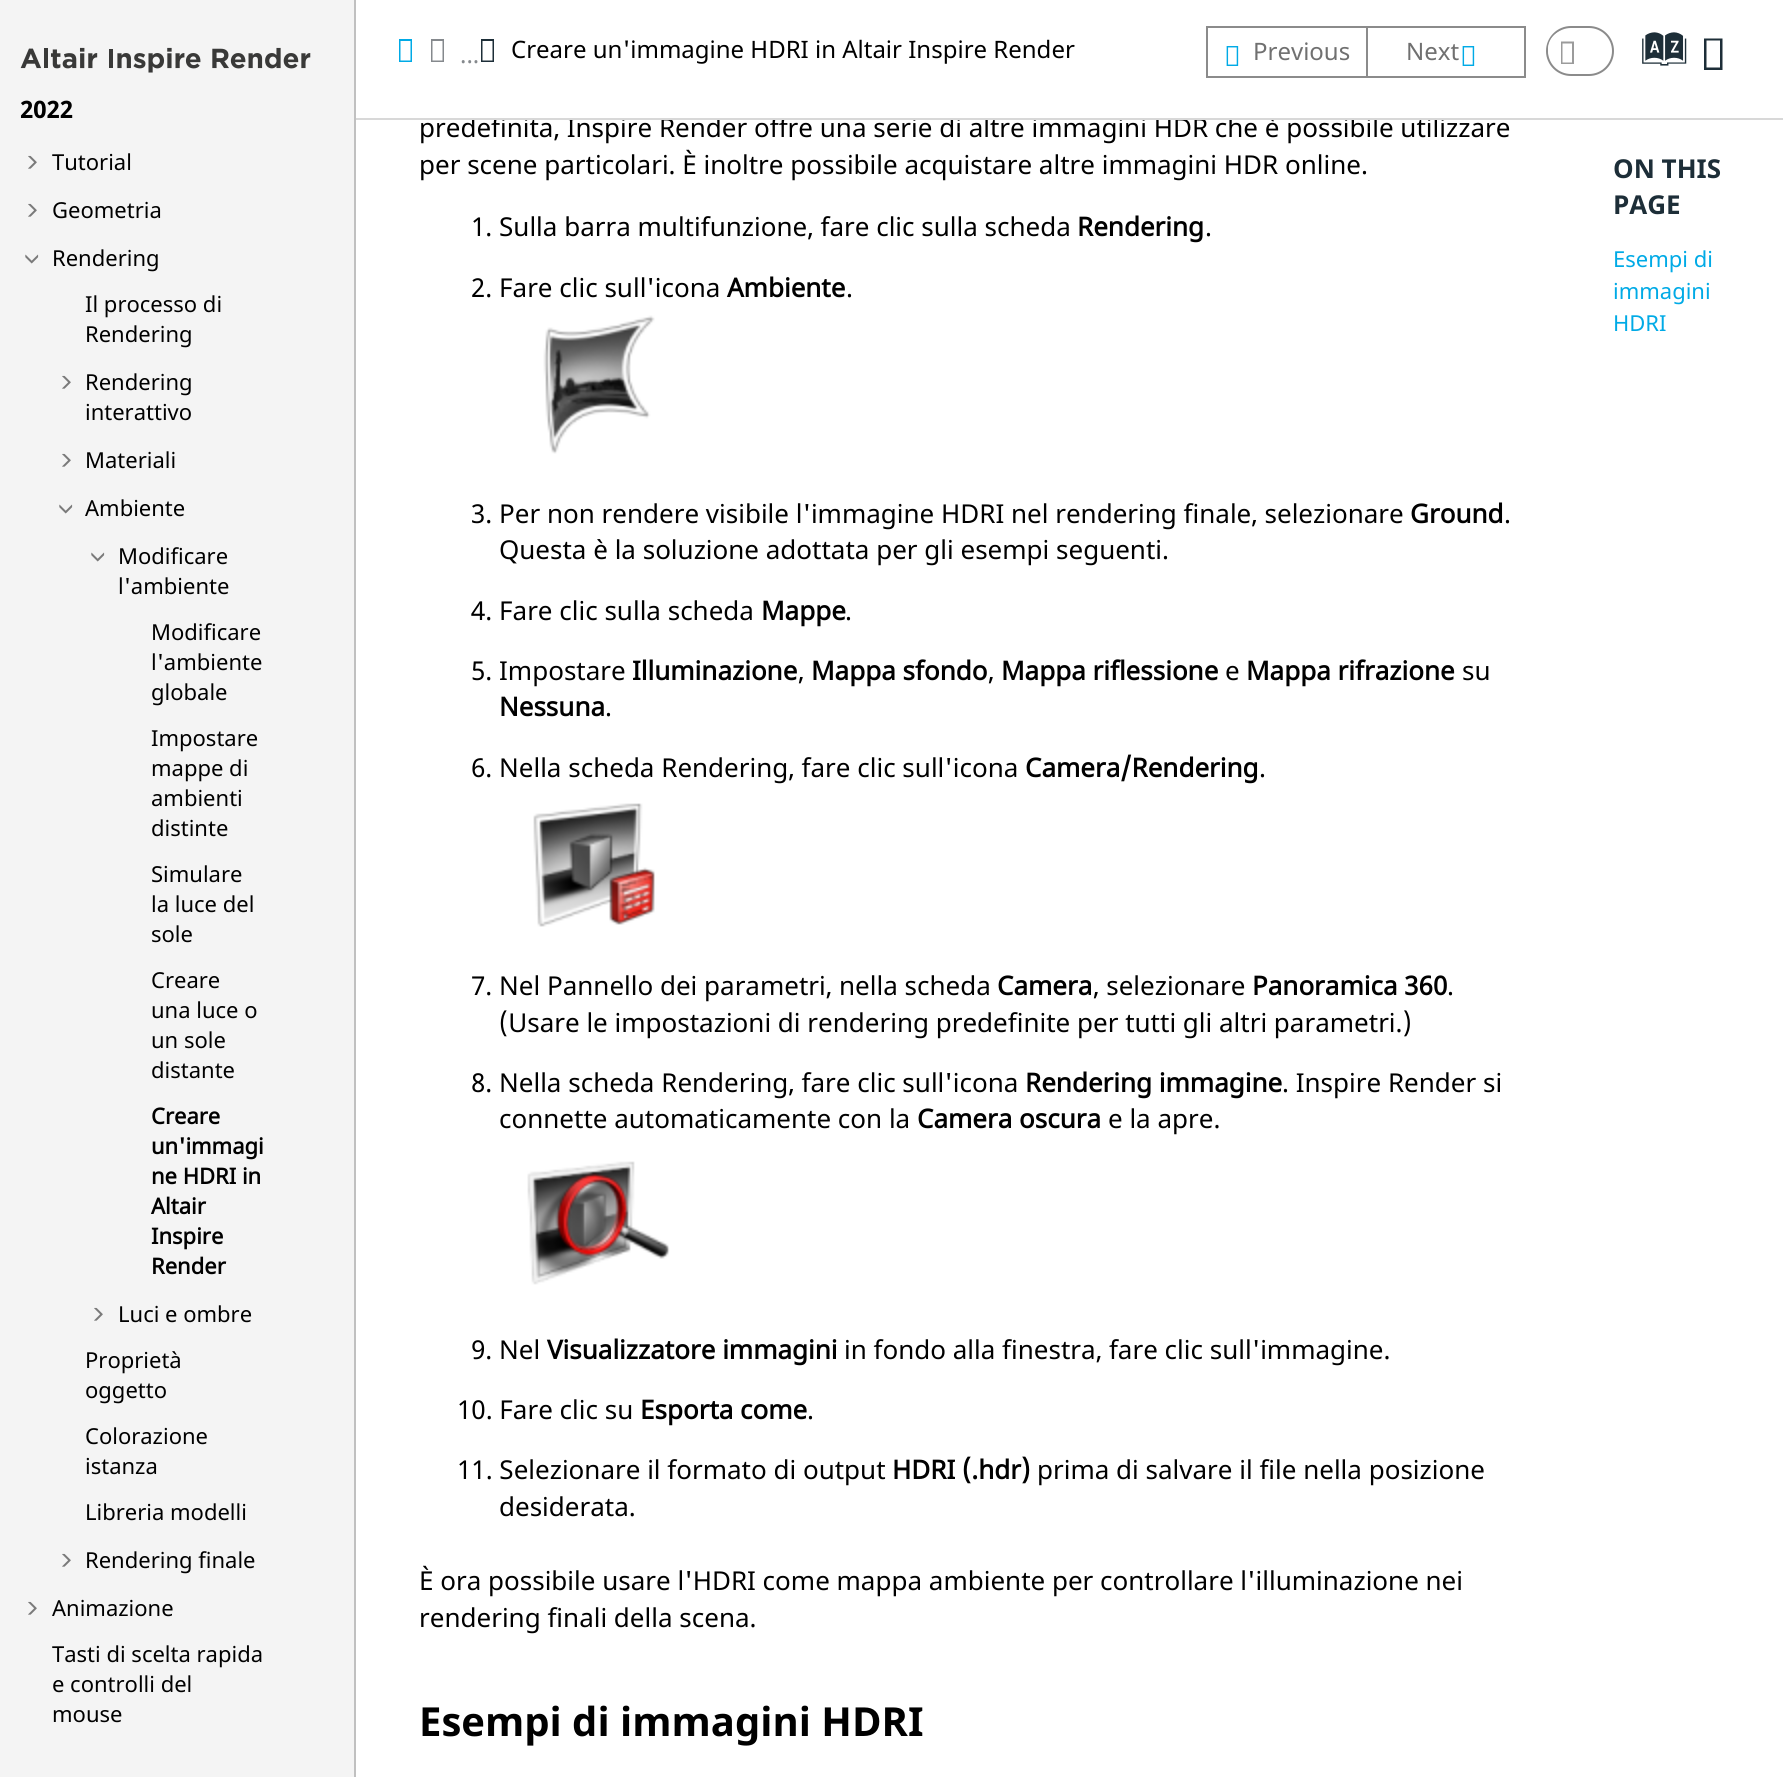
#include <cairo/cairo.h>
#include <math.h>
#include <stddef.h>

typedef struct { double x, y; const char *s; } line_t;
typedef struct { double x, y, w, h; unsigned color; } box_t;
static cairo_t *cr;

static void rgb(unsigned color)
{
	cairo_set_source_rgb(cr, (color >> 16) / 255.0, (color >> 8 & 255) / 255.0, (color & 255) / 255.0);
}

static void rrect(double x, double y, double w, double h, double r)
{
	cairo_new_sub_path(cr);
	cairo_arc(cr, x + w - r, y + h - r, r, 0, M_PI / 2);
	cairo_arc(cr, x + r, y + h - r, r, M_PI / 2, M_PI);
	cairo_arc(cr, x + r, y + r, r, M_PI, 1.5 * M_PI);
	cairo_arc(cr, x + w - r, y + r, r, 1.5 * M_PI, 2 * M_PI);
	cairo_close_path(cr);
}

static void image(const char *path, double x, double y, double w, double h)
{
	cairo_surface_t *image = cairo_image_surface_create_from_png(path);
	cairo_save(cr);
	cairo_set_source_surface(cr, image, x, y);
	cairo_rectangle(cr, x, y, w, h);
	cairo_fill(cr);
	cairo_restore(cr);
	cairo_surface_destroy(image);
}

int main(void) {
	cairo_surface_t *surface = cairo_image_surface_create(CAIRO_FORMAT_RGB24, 1783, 1777);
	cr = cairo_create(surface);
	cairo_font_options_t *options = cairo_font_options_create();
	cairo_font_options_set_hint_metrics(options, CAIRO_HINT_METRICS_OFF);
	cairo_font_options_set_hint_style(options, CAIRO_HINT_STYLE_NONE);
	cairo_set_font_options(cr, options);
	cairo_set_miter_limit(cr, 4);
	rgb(0xffffff);
	cairo_paint(cr);
	rgb(0xf4f4f4);
	cairo_rectangle(cr, 0, 0, 354, 1777);
	cairo_fill(cr);
	rgb(0xc0c0c0);
	cairo_rectangle(cr, 354, 0, 2, 1777);
	cairo_fill(cr);
	image("img/1.png", 20, 47, 291, 26);
	image("img/2.png", 28, 155, 9, 14);
	image("img/2.png", 28, 203, 9, 14);
	image("img/3.png", 25, 254, 14, 10);
	image("img/2.png", 62, 375, 9, 14);
	image("img/2.png", 62, 453, 9, 14);
	image("img/3.png", 59, 504, 14, 10);
	image("img/3.png", 91, 552, 14, 10);
	image("img/2.png", 94, 1307, 9, 14);
	image("img/2.png", 62, 1553, 9, 14);
	image("img/2.png", 28, 1601, 9, 14);
	rgb(0x00aae6);
	cairo_new_path(cr);
	cairo_move_to(cr, 399, 62);
	cairo_line_to(cr, 399, 39);
	cairo_line_to(cr, 412, 39);
	cairo_line_to(cr, 412, 62);
	cairo_close_path(cr);
	cairo_move_to(cr, 400.5, 60.5);
	cairo_line_to(cr, 410.5, 60.5);
	cairo_line_to(cr, 410.5, 41);
	cairo_line_to(cr, 400.5, 41);
	cairo_close_path(cr);
	cairo_fill(cr);
	rgb(0x85898d);
	cairo_new_path(cr);
	cairo_move_to(cr, 431, 62);
	cairo_line_to(cr, 431, 39);
	cairo_line_to(cr, 444, 39);
	cairo_line_to(cr, 444, 62);
	cairo_close_path(cr);
	cairo_move_to(cr, 432.5, 60.5);
	cairo_line_to(cr, 442.5, 60.5);
	cairo_line_to(cr, 442.5, 41);
	cairo_line_to(cr, 432.5, 41);
	cairo_close_path(cr);
	cairo_fill(cr);
	rgb(0x1d2e38);
	cairo_new_path(cr);
	cairo_move_to(cr, 481, 62);
	cairo_line_to(cr, 481, 39);
	cairo_line_to(cr, 494, 39);
	cairo_line_to(cr, 494, 62);
	cairo_close_path(cr);
	cairo_move_to(cr, 482.5, 60.5);
	cairo_line_to(cr, 492.5, 60.5);
	cairo_line_to(cr, 492.5, 41);
	cairo_line_to(cr, 482.5, 41);
	cairo_close_path(cr);
	cairo_fill(cr);
	{
		static const box_t items[] = {
			{1206, 26, 160, 2, 0x8b8b8b},
			{1206, 76, 160, 2, 0x8b8b8b},
			{1206, 26, 2, 52, 0x8b8b8b},
		};
		for (size_t i = 0; i < sizeof items / sizeof *items; i++) {
			rgb(items[i].color);
			cairo_rectangle(cr, items[i].x, items[i].y, items[i].w, items[i].h);
			cairo_fill(cr);
		}
	}
	image("img/4.png", 1226, 46, 13, 20);
	cairo_rectangle(cr, 1367, 27, 158, 50);
	cairo_stroke(cr);
	image("img/4.png", 1462, 46, 13, 20);
	rrect(1547, 27, 66, 48, 24);
	cairo_stroke(cr);
	rgb(0xffffff);
	rrect(1548, 30, 40, 38, 19);
	cairo_fill(cr);
	rgb(0x9b9b9b);
	cairo_new_path(cr);
	cairo_move_to(cr, 1561, 64);
	cairo_line_to(cr, 1561, 41.5);
	cairo_line_to(cr, 1574, 41.5);
	cairo_line_to(cr, 1574, 64);
	cairo_close_path(cr);
	cairo_move_to(cr, 1562.5, 62.5);
	cairo_line_to(cr, 1572, 62.5);
	cairo_line_to(cr, 1572, 43.5);
	cairo_line_to(cr, 1562.5, 43.5);
	cairo_close_path(cr);
	cairo_fill(cr);
	rgb(0x1d2e38);
	cairo_new_path(cr);
	cairo_move_to(cr, 1704, 70);
	cairo_line_to(cr, 1704, 38.5);
	cairo_line_to(cr, 1722.5, 38.5);
	cairo_line_to(cr, 1722.5, 70);
	cairo_close_path(cr);
	cairo_move_to(cr, 1706.5, 67.5);
	cairo_line_to(cr, 1720, 67.5);
	cairo_line_to(cr, 1720, 40.5);
	cairo_line_to(cr, 1706.5, 40.5);
	cairo_close_path(cr);
	cairo_fill(cr);
	image("img/5.png", 543, 315, 112, 139);
	image("img/6.png", 533, 803, 122, 124);
	image("img/7.png", 527, 1161, 143, 124);
	cairo_select_font_face(cr, "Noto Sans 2", CAIRO_FONT_SLANT_NORMAL, CAIRO_FONT_WEIGHT_BOLD);
	cairo_set_font_size(cr, 24);
	rgb(0x000000);
	cairo_move_to(cr, 20, 118);
	cairo_show_text(cr, "2022");
	cairo_select_font_face(cr, "Noto Sans", CAIRO_FONT_SLANT_NORMAL, CAIRO_FONT_WEIGHT_NORMAL);
	cairo_set_font_size(cr, 22);
	{
		static const line_t items[] = {
			{52, 170, "Tutorial"},
			{52, 218, "Geometria"},
			{52, 266, "Rendering"},
			{85, 312, "Il processo di"},
			{85, 342, "Rendering"},
			{85, 390, "Rendering"},
			{85, 420, "interattivo"},
			{85, 468, "Materiali"},
			{85, 516, "Ambiente"},
			{118, 564, "Modificare"},
			{118, 594, "l'ambiente"},
			{151, 640, "Modificare"},
			{151, 670, "l'ambiente"},
			{151, 700, "globale"},
			{151, 746, "Impostare"},
			{151, 776, "mappe di"},
			{151, 806, "ambienti"},
			{151, 836, "distinte"},
			{151, 882, "Simulare"},
			{151, 912, "la luce del"},
			{151, 942, "sole"},
			{151, 988, "Creare"},
			{151, 1018, "una luce o"},
			{151, 1048, "un sole"},
			{151, 1078, "distante"},
		};
		for (size_t i = 0; i < sizeof items / sizeof *items; i++) {
			cairo_move_to(cr, items[i].x, items[i].y);
			cairo_show_text(cr, items[i].s);
		}
	}
	cairo_select_font_face(cr, "Noto Sans", CAIRO_FONT_SLANT_NORMAL, CAIRO_FONT_WEIGHT_BOLD);
	{
		static const line_t items[] = {
			{151, 1124, "Creare"},
			{151, 1154, "un'immagi"},
			{151, 1184, "ne HDRI in"},
			{151, 1214, "Altair"},
			{151, 1244, "Inspire"},
			{151, 1274, "Render"},
		};
		for (size_t i = 0; i < sizeof items / sizeof *items; i++) {
			cairo_move_to(cr, items[i].x, items[i].y);
			cairo_show_text(cr, items[i].s);
		}
	}
	cairo_select_font_face(cr, "Noto Sans", CAIRO_FONT_SLANT_NORMAL, CAIRO_FONT_WEIGHT_NORMAL);
	{
		static const line_t items[] = {
			{118, 1322, "Luci e ombre"},
			{85, 1368, "Proprietà"},
			{85, 1398, "oggetto"},
			{85, 1444, "Colorazione"},
			{85, 1474, "istanza"},
			{85, 1520, "Libreria modelli"},
			{85, 1568, "Rendering finale"},
			{52, 1616, "Animazione"},
			{52, 1662, "Tasti di scelta rapida"},
			{52, 1692, "e controlli del"},
			{52, 1722, "mouse"},
		};
		for (size_t i = 0; i < sizeof items / sizeof *items; i++) {
			cairo_move_to(cr, items[i].x, items[i].y);
			cairo_show_text(cr, items[i].s);
		}
	}
	cairo_set_font_size(cr, 24);
	rgb(0x85898d);
	cairo_move_to(cr, 460, 63);
	cairo_show_text(cr, "...");
	rgb(0x000000);
	cairo_move_to(cr, 511, 58);
	cairo_show_text(cr, "Creare un'immagine HDRI in Altair Inspire Render");
	rgb(0x707070);
	cairo_move_to(cr, 1253, 60);
	cairo_show_text(cr, "Previous");
	cairo_move_to(cr, 1406, 60);
	cairo_show_text(cr, "Next");
	cairo_select_font_face(cr, "Oxygen", CAIRO_FONT_SLANT_NORMAL, CAIRO_FONT_WEIGHT_NORMAL);
	cairo_set_font_size(cr, 47);
	rgb(0x1d2e38);
	cairo_move_to(cr, 1647, 71);
	cairo_show_text(cr, "a");
	cairo_select_font_face(cr, "Noto Sans", CAIRO_FONT_SLANT_NORMAL, CAIRO_FONT_WEIGHT_NORMAL);
	cairo_set_font_size(cr, 26);
	rgb(0x000000);
	cairo_move_to(cr, 419, 137);
	cairo_show_text(cr, "predefinita, Inspire Render offre una serie di altre immagini HDR che è possibile utilizzare");
	rgb(0xd8d8d8);
	cairo_rectangle(cr, 356, 118, 1427, 2);
	cairo_fill(cr);
	rgb(0xffffff);
	cairo_rectangle(cr, 471, 117, 973, 1);
	cairo_fill(cr);
	rgb(0x000000);
	cairo_move_to(cr, 419, 174);
	cairo_show_text(cr, "per scene particolari. È inoltre possibile acquistare altre immagini HDR online.");
	cairo_move_to(cr, 471, 236);
	cairo_show_text(cr, "1. Sulla barra multifunzione, fare clic sulla scheda");
	cairo_select_font_face(cr, "Noto Sans", CAIRO_FONT_SLANT_NORMAL, CAIRO_FONT_WEIGHT_BOLD);
	cairo_move_to(cr, 1077, 236);
	cairo_show_text(cr, "Rendering");
	cairo_select_font_face(cr, "Noto Sans", CAIRO_FONT_SLANT_NORMAL, CAIRO_FONT_WEIGHT_NORMAL);
	cairo_move_to(cr, 1205, 236);
	cairo_show_text(cr, ".");
	cairo_move_to(cr, 471, 297);
	cairo_show_text(cr, "2. Fare clic sull'icona");
	cairo_select_font_face(cr, "Noto Sans", CAIRO_FONT_SLANT_NORMAL, CAIRO_FONT_WEIGHT_BOLD);
	cairo_move_to(cr, 727, 297);
	cairo_show_text(cr, "Ambiente");
	cairo_select_font_face(cr, "Noto Sans", CAIRO_FONT_SLANT_NORMAL, CAIRO_FONT_WEIGHT_NORMAL);
	cairo_move_to(cr, 846, 297);
	cairo_show_text(cr, ".");
	cairo_move_to(cr, 471, 523);
	cairo_show_text(cr, "3. Per non rendere visibile l'immagine HDRI nel rendering finale, selezionare");
	cairo_select_font_face(cr, "Noto Sans", CAIRO_FONT_SLANT_NORMAL, CAIRO_FONT_WEIGHT_BOLD);
	cairo_move_to(cr, 1410, 523);
	cairo_show_text(cr, "Ground");
	cairo_select_font_face(cr, "Noto Sans", CAIRO_FONT_SLANT_NORMAL, CAIRO_FONT_WEIGHT_NORMAL);
	{
		static const line_t items[] = {
			{1504, 523, "."},
			{499, 559, "Questa è la soluzione adottata per gli esempi seguenti."},
			{471, 620, "4. Fare clic sulla scheda"},
		};
		for (size_t i = 0; i < sizeof items / sizeof *items; i++) {
			cairo_move_to(cr, items[i].x, items[i].y);
			cairo_show_text(cr, items[i].s);
		}
	}
	cairo_select_font_face(cr, "Noto Sans", CAIRO_FONT_SLANT_NORMAL, CAIRO_FONT_WEIGHT_BOLD);
	cairo_move_to(cr, 761, 620);
	cairo_show_text(cr, "Mappe");
	cairo_select_font_face(cr, "Noto Sans", CAIRO_FONT_SLANT_NORMAL, CAIRO_FONT_WEIGHT_NORMAL);
	cairo_move_to(cr, 845, 620);
	cairo_show_text(cr, ".");
	cairo_move_to(cr, 471, 680);
	cairo_show_text(cr, "5. Impostare");
	cairo_select_font_face(cr, "Noto Sans", CAIRO_FONT_SLANT_NORMAL, CAIRO_FONT_WEIGHT_BOLD);
	cairo_move_to(cr, 632, 680);
	cairo_show_text(cr, "Illuminazione");
	cairo_select_font_face(cr, "Noto Sans", CAIRO_FONT_SLANT_NORMAL, CAIRO_FONT_WEIGHT_NORMAL);
	cairo_move_to(cr, 798, 680);
	cairo_show_text(cr, ",");
	cairo_select_font_face(cr, "Noto Sans", CAIRO_FONT_SLANT_NORMAL, CAIRO_FONT_WEIGHT_BOLD);
	cairo_move_to(cr, 811, 680);
	cairo_show_text(cr, "Mappa sfondo");
	cairo_select_font_face(cr, "Noto Sans", CAIRO_FONT_SLANT_NORMAL, CAIRO_FONT_WEIGHT_NORMAL);
	cairo_move_to(cr, 988, 680);
	cairo_show_text(cr, ",");
	cairo_select_font_face(cr, "Noto Sans", CAIRO_FONT_SLANT_NORMAL, CAIRO_FONT_WEIGHT_BOLD);
	cairo_move_to(cr, 1001, 680);
	cairo_show_text(cr, "Mappa riflessione");
	cairo_select_font_face(cr, "Noto Sans", CAIRO_FONT_SLANT_NORMAL, CAIRO_FONT_WEIGHT_NORMAL);
	cairo_move_to(cr, 1225, 680);
	cairo_show_text(cr, "e");
	cairo_select_font_face(cr, "Noto Sans", CAIRO_FONT_SLANT_NORMAL, CAIRO_FONT_WEIGHT_BOLD);
	cairo_move_to(cr, 1246, 680);
	cairo_show_text(cr, "Mappa rifrazione");
	cairo_select_font_face(cr, "Noto Sans", CAIRO_FONT_SLANT_NORMAL, CAIRO_FONT_WEIGHT_NORMAL);
	cairo_move_to(cr, 1462, 680);
	cairo_show_text(cr, "su");
	cairo_select_font_face(cr, "Noto Sans", CAIRO_FONT_SLANT_NORMAL, CAIRO_FONT_WEIGHT_BOLD);
	cairo_move_to(cr, 499, 716);
	cairo_show_text(cr, "Nessuna");
	cairo_select_font_face(cr, "Noto Sans", CAIRO_FONT_SLANT_NORMAL, CAIRO_FONT_WEIGHT_NORMAL);
	cairo_move_to(cr, 605, 716);
	cairo_show_text(cr, ".");
	cairo_move_to(cr, 471, 777);
	cairo_show_text(cr, "6. Nella scheda Rendering, fare clic sull'icona");
	cairo_select_font_face(cr, "Noto Sans", CAIRO_FONT_SLANT_NORMAL, CAIRO_FONT_WEIGHT_BOLD);
	cairo_move_to(cr, 1025, 777);
	cairo_show_text(cr, "Camera/Rendering");
	cairo_select_font_face(cr, "Noto Sans", CAIRO_FONT_SLANT_NORMAL, CAIRO_FONT_WEIGHT_NORMAL);
	cairo_move_to(cr, 1259, 777);
	cairo_show_text(cr, ".");
	cairo_move_to(cr, 471, 995);
	cairo_show_text(cr, "7. Nel Pannello dei parametri, nella scheda");
	cairo_select_font_face(cr, "Noto Sans", CAIRO_FONT_SLANT_NORMAL, CAIRO_FONT_WEIGHT_BOLD);
	cairo_move_to(cr, 997, 995);
	cairo_show_text(cr, "Camera");
	cairo_select_font_face(cr, "Noto Sans", CAIRO_FONT_SLANT_NORMAL, CAIRO_FONT_WEIGHT_NORMAL);
	cairo_move_to(cr, 1093, 995);
	cairo_show_text(cr, ", selezionare");
	cairo_select_font_face(cr, "Noto Sans", CAIRO_FONT_SLANT_NORMAL, CAIRO_FONT_WEIGHT_BOLD);
	cairo_move_to(cr, 1252, 995);
	cairo_show_text(cr, "Panoramica 360");
	cairo_select_font_face(cr, "Noto Sans", CAIRO_FONT_SLANT_NORMAL, CAIRO_FONT_WEIGHT_NORMAL);
	{
		static const line_t items[] = {
			{1447, 995, "."},
			{499, 1032, "(Usare le impostazioni di rendering predefinite per tutti gli altri parametri.)"},
			{471, 1092, "8. Nella scheda Rendering, fare clic sull'icona"},
		};
		for (size_t i = 0; i < sizeof items / sizeof *items; i++) {
			cairo_move_to(cr, items[i].x, items[i].y);
			cairo_show_text(cr, items[i].s);
		}
	}
	cairo_select_font_face(cr, "Noto Sans", CAIRO_FONT_SLANT_NORMAL, CAIRO_FONT_WEIGHT_BOLD);
	cairo_move_to(cr, 1025, 1092);
	cairo_show_text(cr, "Rendering immagine");
	cairo_select_font_face(cr, "Noto Sans", CAIRO_FONT_SLANT_NORMAL, CAIRO_FONT_WEIGHT_NORMAL);
	cairo_move_to(cr, 1282, 1092);
	cairo_show_text(cr, ". Inspire Render si");
	cairo_move_to(cr, 499, 1128);
	cairo_show_text(cr, "connette automaticamente con la");
	cairo_select_font_face(cr, "Noto Sans", CAIRO_FONT_SLANT_NORMAL, CAIRO_FONT_WEIGHT_BOLD);
	cairo_move_to(cr, 917, 1128);
	cairo_show_text(cr, "Camera oscura");
	cairo_select_font_face(cr, "Noto Sans", CAIRO_FONT_SLANT_NORMAL, CAIRO_FONT_WEIGHT_NORMAL);
	cairo_move_to(cr, 1108, 1128);
	cairo_show_text(cr, "e la apre.");
	cairo_move_to(cr, 471, 1359);
	cairo_show_text(cr, "9. Nel");
	cairo_select_font_face(cr, "Noto Sans", CAIRO_FONT_SLANT_NORMAL, CAIRO_FONT_WEIGHT_BOLD);
	cairo_move_to(cr, 547, 1359);
	cairo_show_text(cr, "Visualizzatore immagini");
	cairo_select_font_face(cr, "Noto Sans", CAIRO_FONT_SLANT_NORMAL, CAIRO_FONT_WEIGHT_NORMAL);
	cairo_move_to(cr, 844, 1359);
	cairo_show_text(cr, "in fondo alla finestra, fare clic sull'immagine.");
	cairo_move_to(cr, 457, 1419);
	cairo_show_text(cr, "10. Fare clic su");
	cairo_select_font_face(cr, "Noto Sans", CAIRO_FONT_SLANT_NORMAL, CAIRO_FONT_WEIGHT_BOLD);
	cairo_move_to(cr, 640, 1419);
	cairo_show_text(cr, "Esporta come");
	cairo_select_font_face(cr, "Noto Sans", CAIRO_FONT_SLANT_NORMAL, CAIRO_FONT_WEIGHT_NORMAL);
	cairo_move_to(cr, 807, 1419);
	cairo_show_text(cr, ".");
	cairo_move_to(cr, 457, 1479);
	cairo_show_text(cr, "11. Selezionare il formato di output");
	cairo_select_font_face(cr, "Noto Sans", CAIRO_FONT_SLANT_NORMAL, CAIRO_FONT_WEIGHT_BOLD);
	cairo_move_to(cr, 892, 1479);
	cairo_show_text(cr, "HDRI (.hdr)");
	cairo_select_font_face(cr, "Noto Sans", CAIRO_FONT_SLANT_NORMAL, CAIRO_FONT_WEIGHT_NORMAL);
	{
		static const line_t items[] = {
			{1037, 1479, "prima di salvare il file nella posizione"},
			{499, 1516, "desiderata."},
			{419, 1590, "È ora possibile usare l'HDRI come mappa ambiente per controllare l'illuminazione nei"},
			{419, 1627, "rendering finali della scena."},
		};
		for (size_t i = 0; i < sizeof items / sizeof *items; i++) {
			cairo_move_to(cr, items[i].x, items[i].y);
			cairo_show_text(cr, items[i].s);
		}
	}
	cairo_select_font_face(cr, "Noto Sans 2", CAIRO_FONT_SLANT_NORMAL, CAIRO_FONT_WEIGHT_BOLD);
	cairo_set_font_size(cr, 40);
	cairo_move_to(cr, 419, 1736);
	cairo_show_text(cr, "Esempi di immagini HDRI");
	cairo_set_font_size(cr, 26);
	rgb(0x1d2e38);
	cairo_move_to(cr, 1613, 178);
	cairo_show_text(cr, "ON THIS");
	cairo_move_to(cr, 1613, 214);
	cairo_show_text(cr, "PAGE");
	cairo_select_font_face(cr, "Noto Sans", CAIRO_FONT_SLANT_NORMAL, CAIRO_FONT_WEIGHT_NORMAL);
	cairo_set_font_size(cr, 22);
	rgb(0x00aae6);
	{
		static const line_t items[] = {
			{1613, 267, "Esempi di"},
			{1613, 299, "immagini"},
			{1613, 331, "HDRI"},
		};
		for (size_t i = 0; i < sizeof items / sizeof *items; i++) {
			cairo_move_to(cr, items[i].x, items[i].y);
			cairo_show_text(cr, items[i].s);
		}
	}
	cairo_surface_write_to_png(surface, "page.png");
	cairo_font_options_destroy(options);
	cairo_destroy(cr);
	cairo_surface_destroy(surface);
	return 0;
}
